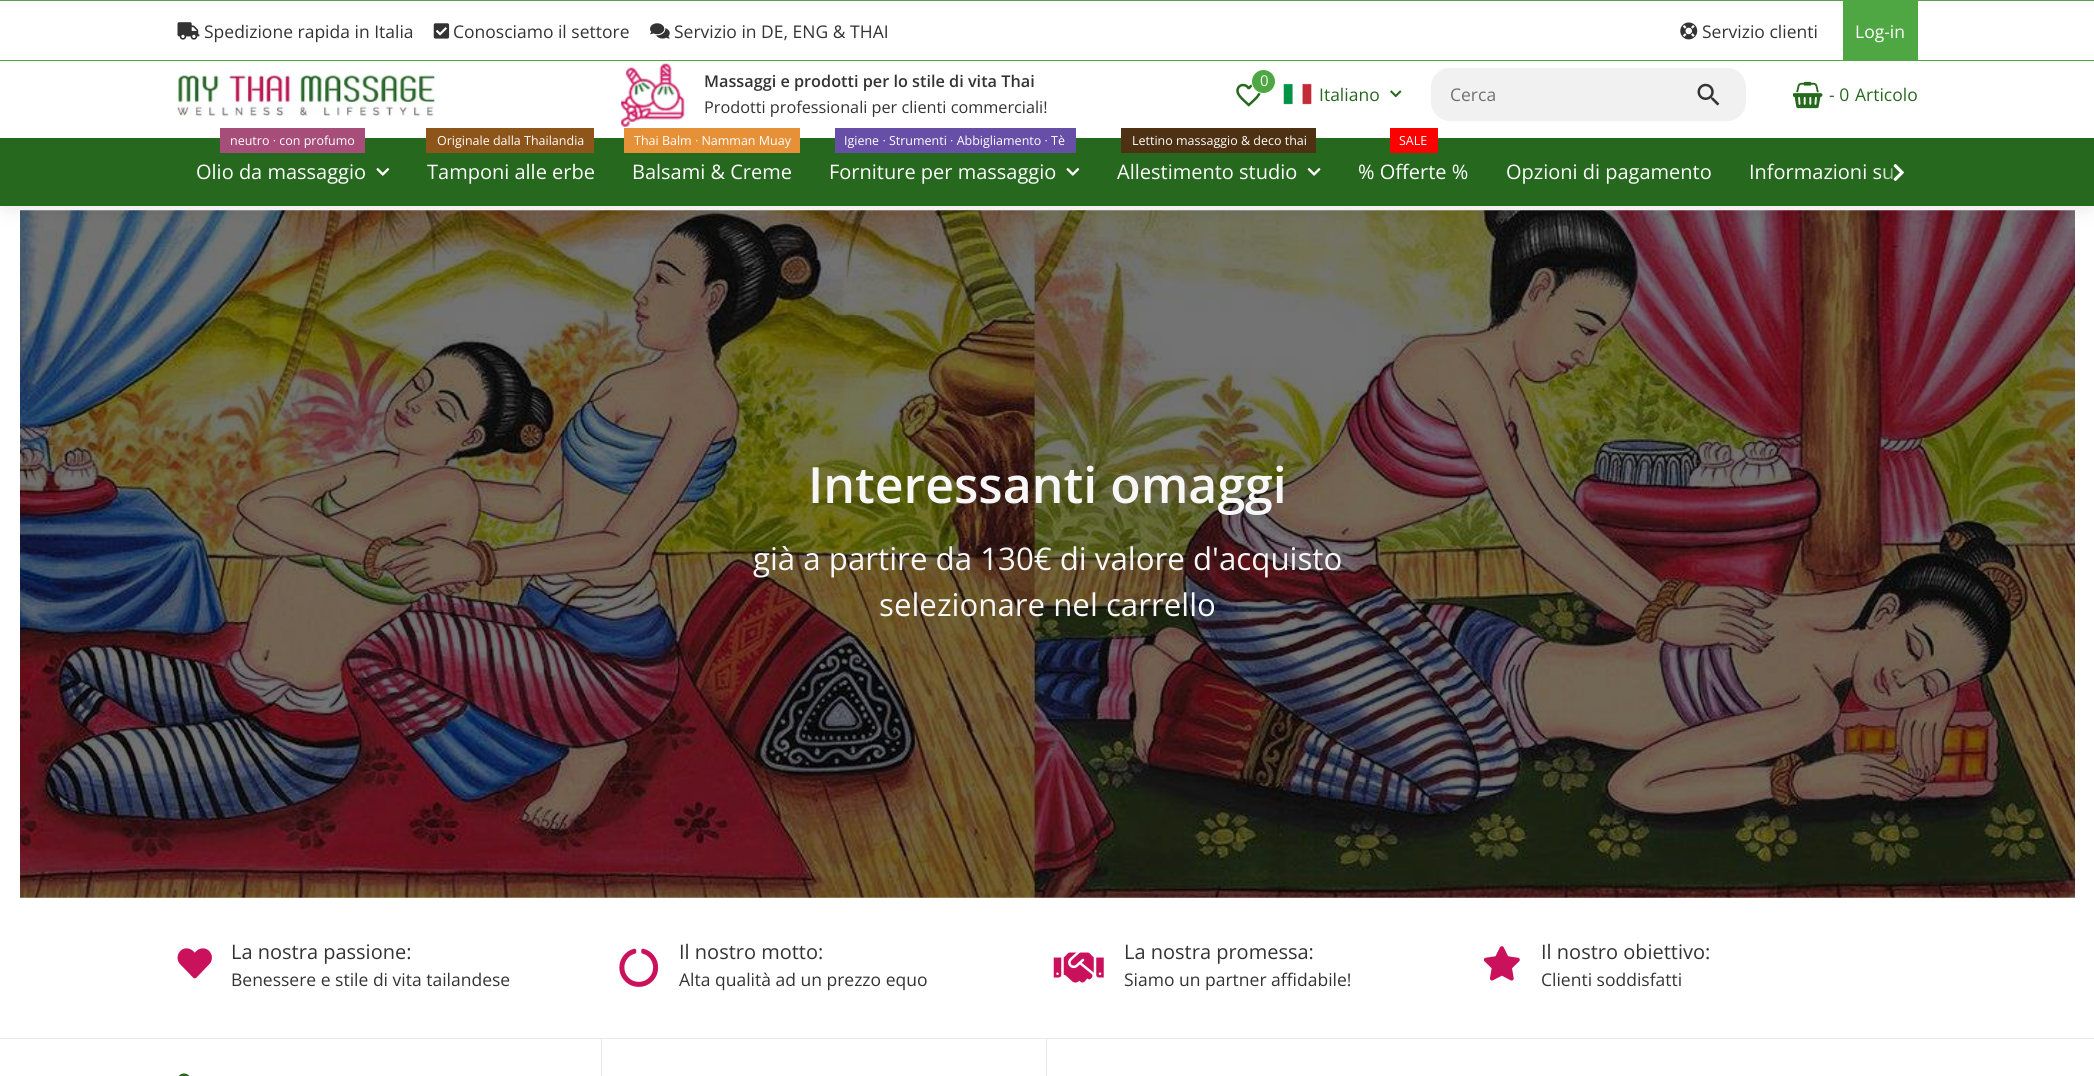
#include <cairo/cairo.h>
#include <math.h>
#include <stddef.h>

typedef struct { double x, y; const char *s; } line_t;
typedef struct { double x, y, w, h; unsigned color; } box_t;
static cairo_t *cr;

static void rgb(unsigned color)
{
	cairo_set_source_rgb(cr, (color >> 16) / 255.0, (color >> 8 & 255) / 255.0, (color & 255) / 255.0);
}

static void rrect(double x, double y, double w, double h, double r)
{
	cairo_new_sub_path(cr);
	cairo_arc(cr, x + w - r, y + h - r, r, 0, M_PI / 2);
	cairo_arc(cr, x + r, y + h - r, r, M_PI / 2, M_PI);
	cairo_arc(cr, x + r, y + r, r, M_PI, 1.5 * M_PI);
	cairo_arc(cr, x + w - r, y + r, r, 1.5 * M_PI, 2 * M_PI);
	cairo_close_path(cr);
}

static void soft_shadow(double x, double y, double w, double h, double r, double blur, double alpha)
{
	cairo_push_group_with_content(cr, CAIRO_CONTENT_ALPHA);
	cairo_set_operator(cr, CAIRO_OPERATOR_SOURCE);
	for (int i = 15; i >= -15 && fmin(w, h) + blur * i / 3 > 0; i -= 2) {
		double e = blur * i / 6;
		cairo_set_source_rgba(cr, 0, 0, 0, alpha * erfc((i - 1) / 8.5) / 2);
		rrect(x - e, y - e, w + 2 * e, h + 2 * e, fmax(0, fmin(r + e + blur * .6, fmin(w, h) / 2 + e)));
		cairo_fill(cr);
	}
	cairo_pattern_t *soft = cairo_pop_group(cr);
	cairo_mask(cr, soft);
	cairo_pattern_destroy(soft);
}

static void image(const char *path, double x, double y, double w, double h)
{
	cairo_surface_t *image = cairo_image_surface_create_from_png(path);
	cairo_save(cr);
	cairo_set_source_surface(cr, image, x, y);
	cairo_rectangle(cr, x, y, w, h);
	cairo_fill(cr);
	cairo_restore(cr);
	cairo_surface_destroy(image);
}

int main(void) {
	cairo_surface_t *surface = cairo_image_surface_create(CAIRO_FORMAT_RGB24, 2094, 1076);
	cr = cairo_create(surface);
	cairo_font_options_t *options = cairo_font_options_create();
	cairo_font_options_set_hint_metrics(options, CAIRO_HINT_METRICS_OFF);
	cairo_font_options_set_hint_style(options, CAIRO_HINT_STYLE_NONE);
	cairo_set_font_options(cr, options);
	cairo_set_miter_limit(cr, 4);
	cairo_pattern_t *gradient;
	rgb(0xffffff);
	cairo_paint(cr);
	image("img/15.png", 20, 210, 2055, 688);
	rgb(0x000000);
	soft_shadow(6, 6, 2083, 194, 0, 12.5, 0.2);
	{
		static const box_t items[] = {
			{0, 1, 2094, 59, 0xffffff},
			{0, 0, 2094, 1, 0x4ea743},
			{0, 60, 2094, 1, 0x4ea743},
		};
		for (size_t i = 0; i < sizeof items / sizeof *items; i++) {
			rgb(items[i].color);
			cairo_rectangle(cr, items[i].x, items[i].y, items[i].w, items[i].h);
			cairo_fill(cr);
		}
	}
	image("img/1.png", 177, 22, 23, 18);
	image("img/2.png", 433, 23, 17, 16);
	image("img/3.png", 650, 23, 20, 16);
	image("img/4.png", 1680, 22, 18, 18);
	cairo_rectangle(cr, 1843, 1, 75, 59);
	cairo_fill(cr);
	rgb(0xffffff);
	cairo_rectangle(cr, 0, 61, 2094, 77);
	cairo_fill(cr);
	image("img/5.png", 177, 74, 259, 42);
	image("img/6.png", 621, 63, 64, 64);
	image("img/7.png", 1236, 83, 25, 24);
	rgb(0x4ea743);
	cairo_arc(cr, 1263.5, 81.5, 12, 0, 2 * M_PI);
	cairo_fill_preserve(cr);
	rgb(0xffffff);
	cairo_set_line_width(cr, 1);
	cairo_stroke(cr);
	image("img/8.png", 1283, 83, 29, 22);
	image("img/9.png", 1390, 90, 12, 8);
	rgb(0xf1f1f1);
	rrect(1431, 68, 315, 53, 19);
	cairo_fill(cr);
	image("img/10.png", 1697, 83, 23, 23);
	image("img/11.png", 1793, 81, 30, 28);
	rgb(0x26681e);
	cairo_rectangle(cr, 0, 138, 2094, 68);
	cairo_fill(cr);
	rgb(0xa64d79);
	cairo_rectangle(cr, 220, 128, 145, 25);
	cairo_fill(cr);
	image("img/12.png", 376, 168, 14, 8);
	{
		static const box_t items[] = {
			{426, 128, 168, 25, 0x8e551a},
			{624, 128, 176, 25, 0xe69138},
			{835, 128, 241, 25, 0x674ea7},
		};
		for (size_t i = 0; i < sizeof items / sizeof *items; i++) {
			rgb(items[i].color);
			cairo_rectangle(cr, items[i].x, items[i].y, items[i].w, items[i].h);
			cairo_fill(cr);
		}
	}
	image("img/12.png", 1066, 168, 14, 8);
	rgb(0x4e3112);
	cairo_rectangle(cr, 1121, 128, 195, 25);
	cairo_fill(cr);
	image("img/13.png", 1307, 168, 14, 8);
	rgb(0xff0000);
	cairo_rectangle(cr, 1390, 128, 48, 25);
	cairo_fill(cr);
	image("img/14.png", 1893, 164, 11, 17);
	rgb(0xe9e9e9);
	cairo_rectangle(cr, 0, 1038, 2094, 1);
	cairo_fill(cr);
	image("img/16.png", 177, 948, 35, 31);
	image("img/17.png", 619, 948, 40, 39);
	image("img/18.png", 1053, 952, 51, 31);
	image("img/19.png", 1483, 946, 37, 35);
	cairo_rectangle(cr, 601, 1039, 1, 37);
	cairo_fill(cr);
	image("img/20.png", 179, 1073, 11, 3);
	cairo_rectangle(cr, 1046, 1039, 1, 37);
	cairo_fill(cr);
	cairo_select_font_face(cr, "Open Sans", CAIRO_FONT_SLANT_NORMAL, CAIRO_FONT_WEIGHT_NORMAL);
	cairo_set_font_size(cr, 17.5);
	rgb(0x333333);
	{
		static const line_t items[] = {
			{204, 38, "Spedizione rapida in Italia"},
			{453, 38, "Conosciamo il settore"},
			{674, 38, "Servizio in DE, ENG & THAI"},
			{1702, 38, "Servizio clienti"},
		};
		for (size_t i = 0; i < sizeof items / sizeof *items; i++) {
			cairo_move_to(cr, items[i].x, items[i].y);
			cairo_show_text(cr, items[i].s);
		}
	}
	rgb(0xffffff);
	cairo_move_to(cr, 1855, 38);
	cairo_show_text(cr, "Log-in");
	cairo_select_font_face(cr, "Open Sans SemiBold", CAIRO_FONT_SLANT_NORMAL, CAIRO_FONT_WEIGHT_NORMAL);
	cairo_set_font_size(cr, 16.25);
	rgb(0x333333);
	cairo_move_to(cr, 704, 87);
	cairo_show_text(cr, "Massaggi e prodotti per lo stile di vita Thai");
	cairo_select_font_face(cr, "Open Sans", CAIRO_FONT_SLANT_NORMAL, CAIRO_FONT_WEIGHT_NORMAL);
	cairo_move_to(cr, 704, 113);
	cairo_show_text(cr, "Prodotti professionali per clienti commerciali!");
	cairo_set_font_size(cr, 15);
	rgb(0xf7f7f7);
	cairo_move_to(cr, 1260, 86);
	cairo_show_text(cr, "0");
	cairo_set_font_size(cr, 17.5);
	rgb(0x26681e);
	cairo_move_to(cr, 1319, 101);
	cairo_show_text(cr, "Italiano");
	rgb(0x707070);
	cairo_move_to(cr, 1450, 101);
	cairo_show_text(cr, "Cerca");
	rgb(0x26681e);
	cairo_move_to(cr, 1829, 101);
	cairo_show_text(cr, "- 0");
	cairo_move_to(cr, 1855, 101);
	cairo_show_text(cr, "Articolo");
	cairo_set_font_size(cr, 12.5);
	rgb(0xffffff);
	cairo_move_to(cr, 230, 145);
	cairo_show_text(cr, "neutro · con profumo");
	cairo_set_font_size(cr, 20);
	cairo_move_to(cr, 196, 179);
	cairo_show_text(cr, "Olio da massaggio");
	cairo_set_font_size(cr, 12.5);
	cairo_move_to(cr, 437, 145);
	cairo_show_text(cr, "Originale dalla Thailandia");
	cairo_set_font_size(cr, 20);
	cairo_move_to(cr, 427, 179);
	cairo_show_text(cr, "Tamponi alle erbe");
	cairo_set_font_size(cr, 12.5);
	cairo_move_to(cr, 634, 145);
	cairo_show_text(cr, "Thai Balm · Namman Muay");
	cairo_set_font_size(cr, 20);
	cairo_move_to(cr, 632, 179);
	cairo_show_text(cr, "Balsami & Creme");
	cairo_set_font_size(cr, 12.5);
	cairo_move_to(cr, 844, 145);
	cairo_show_text(cr, "Igiene · Strumenti · Abbigliamento · Tè");
	cairo_set_font_size(cr, 20);
	cairo_move_to(cr, 829, 179);
	cairo_show_text(cr, "Forniture per massaggio");
	cairo_set_font_size(cr, 12.5);
	cairo_move_to(cr, 1132, 145);
	cairo_show_text(cr, "Lettino massaggio & deco thai");
	cairo_set_font_size(cr, 20);
	cairo_move_to(cr, 1117, 179);
	cairo_show_text(cr, "Allestimento studio");
	cairo_set_font_size(cr, 12.5);
	cairo_move_to(cr, 1399, 145);
	cairo_show_text(cr, "SALE");
	cairo_set_font_size(cr, 20);
	{
		static const line_t items[] = {
			{1358, 179, "% Offerte %"},
			{1506, 179, "Opzioni di pagamento"},
			{1749, 179, "Informazioni su"},
		};
		for (size_t i = 0; i < sizeof items / sizeof *items; i++) {
			cairo_move_to(cr, items[i].x, items[i].y);
			cairo_show_text(cr, items[i].s);
		}
	}
	gradient = cairo_pattern_create_linear(1880, 172, 1918, 172);
	cairo_pattern_add_color_stop_rgba(gradient, 0, 0.149, 0.408, 0.118, 0.01);
	cairo_pattern_add_color_stop_rgba(gradient, 0.7, 0.149, 0.408, 0.118, 1);
	cairo_set_source(cr, gradient);
	cairo_pattern_destroy(gradient);
	cairo_rectangle(cr, 1880, 168, 13, 12);
	cairo_fill(cr);
	cairo_select_font_face(cr, "Open Sans SemiBold", CAIRO_FONT_SLANT_NORMAL, CAIRO_FONT_WEIGHT_NORMAL);
	cairo_set_font_size(cr, 50);
	rgb(0xf7f7f7);
	cairo_move_to(cr, 808, 503);
	cairo_show_text(cr, "Interessanti omaggi");
	cairo_select_font_face(cr, "Open Sans", CAIRO_FONT_SLANT_NORMAL, CAIRO_FONT_WEIGHT_NORMAL);
	cairo_set_font_size(cr, 31.25);
	cairo_move_to(cr, 753, 570);
	cairo_show_text(cr, "già a partire da 130€ di valore d'acquisto");
	cairo_move_to(cr, 879, 616);
	cairo_show_text(cr, "selezionare nel carrello");
	cairo_set_font_size(cr, 20);
	rgb(0x333333);
	cairo_move_to(cr, 231, 959);
	cairo_show_text(cr, "La nostra passione:");
	cairo_set_font_size(cr, 17.5);
	cairo_move_to(cr, 231, 986);
	cairo_show_text(cr, "Benessere e stile di vita tailandese");
	cairo_set_font_size(cr, 20);
	cairo_move_to(cr, 679, 959);
	cairo_show_text(cr, "Il nostro motto:");
	cairo_set_font_size(cr, 17.5);
	cairo_move_to(cr, 679, 986);
	cairo_show_text(cr, "Alta qualità ad un prezzo equo");
	cairo_set_font_size(cr, 20);
	cairo_move_to(cr, 1124, 959);
	cairo_show_text(cr, "La nostra promessa:");
	cairo_set_font_size(cr, 17.5);
	cairo_move_to(cr, 1124, 986);
	cairo_show_text(cr, "Siamo un partner affidabile!");
	cairo_set_font_size(cr, 20);
	cairo_move_to(cr, 1541, 959);
	cairo_show_text(cr, "Il nostro obiettivo:");
	cairo_set_font_size(cr, 17.5);
	cairo_move_to(cr, 1541, 986);
	cairo_show_text(cr, "Clienti soddisfatti");
	cairo_surface_write_to_png(surface, "page.png");
	cairo_font_options_destroy(options);
	cairo_destroy(cr);
	cairo_surface_destroy(surface);
	return 0;
}
